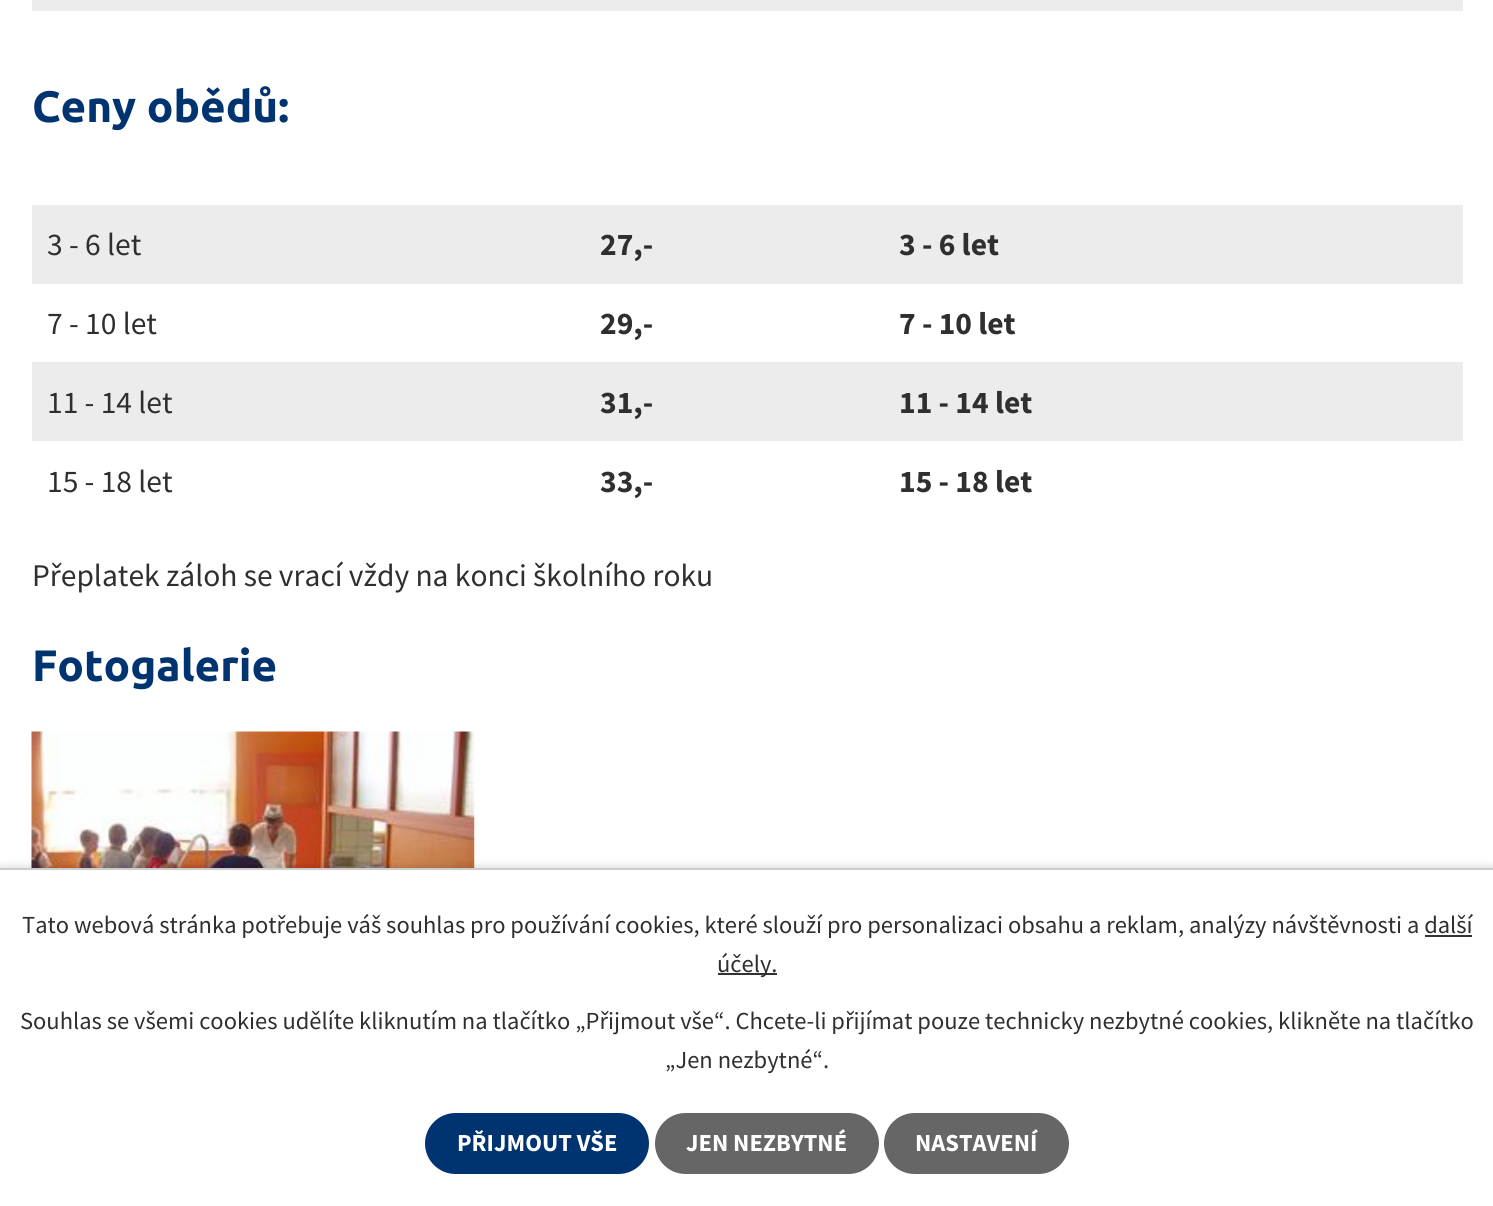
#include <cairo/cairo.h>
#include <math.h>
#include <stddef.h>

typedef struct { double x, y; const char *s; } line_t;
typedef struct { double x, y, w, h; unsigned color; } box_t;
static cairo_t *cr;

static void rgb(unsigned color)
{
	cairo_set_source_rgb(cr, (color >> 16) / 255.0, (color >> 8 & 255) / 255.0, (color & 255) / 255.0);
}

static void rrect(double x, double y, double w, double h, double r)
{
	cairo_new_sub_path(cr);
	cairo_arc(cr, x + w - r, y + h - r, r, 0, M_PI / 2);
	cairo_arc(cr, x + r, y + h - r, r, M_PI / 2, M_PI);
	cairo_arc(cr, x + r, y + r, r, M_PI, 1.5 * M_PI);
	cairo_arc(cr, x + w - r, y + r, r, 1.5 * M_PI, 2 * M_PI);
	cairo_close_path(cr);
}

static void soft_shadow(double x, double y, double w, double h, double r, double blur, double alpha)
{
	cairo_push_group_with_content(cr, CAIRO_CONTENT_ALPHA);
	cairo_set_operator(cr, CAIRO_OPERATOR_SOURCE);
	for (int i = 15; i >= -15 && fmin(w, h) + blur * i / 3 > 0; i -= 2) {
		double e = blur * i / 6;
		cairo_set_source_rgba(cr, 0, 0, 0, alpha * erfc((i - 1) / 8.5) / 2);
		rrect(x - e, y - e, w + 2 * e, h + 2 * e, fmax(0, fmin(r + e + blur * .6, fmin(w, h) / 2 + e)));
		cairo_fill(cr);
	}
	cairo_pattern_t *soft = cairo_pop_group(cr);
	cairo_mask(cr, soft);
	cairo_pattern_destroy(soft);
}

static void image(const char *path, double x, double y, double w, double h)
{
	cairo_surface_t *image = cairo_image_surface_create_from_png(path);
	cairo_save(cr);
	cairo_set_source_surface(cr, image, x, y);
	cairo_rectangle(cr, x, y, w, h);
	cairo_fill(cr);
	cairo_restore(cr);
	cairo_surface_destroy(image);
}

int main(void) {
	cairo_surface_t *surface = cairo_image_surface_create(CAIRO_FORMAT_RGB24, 1493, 1206);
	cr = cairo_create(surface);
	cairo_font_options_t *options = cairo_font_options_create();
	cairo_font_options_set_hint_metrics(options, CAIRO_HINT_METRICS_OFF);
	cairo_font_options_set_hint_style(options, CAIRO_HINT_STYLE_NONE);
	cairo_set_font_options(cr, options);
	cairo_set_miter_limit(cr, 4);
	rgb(0xffffff);
	cairo_paint(cr);
	{
		static const box_t items[] = {
			{32, 0, 1431, 11, 0xececec},
			{32, 205, 1431, 79, 0xececec},
			{32, 362, 1431, 79, 0xececec},
		};
		for (size_t i = 0; i < sizeof items / sizeof *items; i++) {
			rgb(items[i].color);
			cairo_rectangle(cr, items[i].x, items[i].y, items[i].w, items[i].h);
			cairo_fill(cr);
		}
	}
	image("img/1.png", 31, 731, 444, 137);
	rgb(0x000000);
	soft_shadow(0, 868, 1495, 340, 0, 4.5, 0.2);
	{
		static const box_t items[] = {
			{0, 870, 1493, 336, 0xffffff},
			{0, 868, 1493, 2, 0xcccccc},
			{718, 973, 59, 2, 0x333333},
		};
		for (size_t i = 0; i < sizeof items / sizeof *items; i++) {
			rgb(items[i].color);
			cairo_rectangle(cr, items[i].x, items[i].y, items[i].w, items[i].h);
			cairo_fill(cr);
		}
	}
	rgb(0x003471);
	rrect(425, 1113, 224, 61, 30.5);
	cairo_fill(cr);
	rgb(0x666666);
	rrect(655, 1113, 224, 61, 30.5);
	cairo_fill(cr);
	rrect(884, 1113, 185, 61, 30.5);
	cairo_fill(cr);
	cairo_select_font_face(cr, "Ubuntu", CAIRO_FONT_SLANT_NORMAL, CAIRO_FONT_WEIGHT_BOLD);
	cairo_set_font_size(cr, 44);
	rgb(0x003471);
	cairo_move_to(cr, 32, 122);
	cairo_show_text(cr, "Ceny obědů:");
	cairo_select_font_face(cr, "Source Sans Pro", CAIRO_FONT_SLANT_NORMAL, CAIRO_FONT_WEIGHT_NORMAL);
	cairo_set_font_size(cr, 31.5);
	rgb(0x2f2f2f);
	cairo_move_to(cr, 47, 255);
	cairo_show_text(cr, "3 - 6 let");
	cairo_select_font_face(cr, "Source Sans Pro", CAIRO_FONT_SLANT_NORMAL, CAIRO_FONT_WEIGHT_BOLD);
	cairo_move_to(cr, 600, 255);
	cairo_show_text(cr, "27,-");
	cairo_move_to(cr, 899, 255);
	cairo_show_text(cr, "3 - 6 let");
	cairo_select_font_face(cr, "Source Sans Pro", CAIRO_FONT_SLANT_NORMAL, CAIRO_FONT_WEIGHT_NORMAL);
	cairo_move_to(cr, 47, 334);
	cairo_show_text(cr, "7 - 10 let");
	cairo_select_font_face(cr, "Source Sans Pro", CAIRO_FONT_SLANT_NORMAL, CAIRO_FONT_WEIGHT_BOLD);
	cairo_move_to(cr, 600, 334);
	cairo_show_text(cr, "29,-");
	cairo_move_to(cr, 899, 334);
	cairo_show_text(cr, "7 - 10 let");
	cairo_select_font_face(cr, "Source Sans Pro", CAIRO_FONT_SLANT_NORMAL, CAIRO_FONT_WEIGHT_NORMAL);
	cairo_move_to(cr, 47, 413);
	cairo_show_text(cr, "11 - 14 let");
	cairo_select_font_face(cr, "Source Sans Pro", CAIRO_FONT_SLANT_NORMAL, CAIRO_FONT_WEIGHT_BOLD);
	cairo_move_to(cr, 600, 413);
	cairo_show_text(cr, "31,-");
	cairo_move_to(cr, 899, 413);
	cairo_show_text(cr, "11 - 14 let");
	cairo_select_font_face(cr, "Source Sans Pro", CAIRO_FONT_SLANT_NORMAL, CAIRO_FONT_WEIGHT_NORMAL);
	cairo_move_to(cr, 47, 492);
	cairo_show_text(cr, "15 - 18 let");
	cairo_select_font_face(cr, "Source Sans Pro", CAIRO_FONT_SLANT_NORMAL, CAIRO_FONT_WEIGHT_BOLD);
	cairo_move_to(cr, 600, 492);
	cairo_show_text(cr, "33,-");
	cairo_move_to(cr, 899, 492);
	cairo_show_text(cr, "15 - 18 let");
	cairo_select_font_face(cr, "Source Sans Pro", CAIRO_FONT_SLANT_NORMAL, CAIRO_FONT_WEIGHT_NORMAL);
	cairo_move_to(cr, 32, 586);
	cairo_show_text(cr, "Přeplatek záloh se vrací vždy na konci školního roku");
	cairo_select_font_face(cr, "Ubuntu", CAIRO_FONT_SLANT_NORMAL, CAIRO_FONT_WEIGHT_BOLD);
	cairo_set_font_size(cr, 44);
	rgb(0x003471);
	cairo_move_to(cr, 32, 681);
	cairo_show_text(cr, "Fotogalerie");
	cairo_select_font_face(cr, "Source Sans Pro", CAIRO_FONT_SLANT_NORMAL, CAIRO_FONT_WEIGHT_NORMAL);
	cairo_set_font_size(cr, 24.5);
	rgb(0x2f2f2f);
	cairo_move_to(cr, 22, 933);
	cairo_show_text(cr, "Tato webová stránka potřebuje váš souhlas pro používání cookies, které slouží pro personalizaci obsahu a reklam, analýzy návštěvnosti a další");
	cairo_move_to(cr, 717, 972);
	cairo_show_text(cr, "účely.");
	rgb(0x333333);
	cairo_rectangle(cr, 1425, 935, 47, 2);
	cairo_fill(cr);
	rgb(0x2f2f2f);
	cairo_move_to(cr, 20, 1029);
	cairo_show_text(cr, "Souhlas se všemi cookies udělíte kliknutím na tlačítko „Přijmout vše“. Chcete-li přijímat pouze technicky nezbytné cookies, klikněte na tlačítko");
	cairo_move_to(cr, 665, 1068);
	cairo_show_text(cr, "„Jen nezbytné“.");
	cairo_select_font_face(cr, "Source Sans Pro", CAIRO_FONT_SLANT_NORMAL, CAIRO_FONT_WEIGHT_BOLD);
	rgb(0xffffff);
	{
		static const line_t items[] = {
			{457, 1151, "PŘIJMOUT VŠE"},
			{686, 1151, "JEN NEZBYTNÉ"},
			{915, 1151, "NASTAVENÍ"},
		};
		for (size_t i = 0; i < sizeof items / sizeof *items; i++) {
			cairo_move_to(cr, items[i].x, items[i].y);
			cairo_show_text(cr, items[i].s);
		}
	}
	cairo_surface_write_to_png(surface, "page.png");
	cairo_font_options_destroy(options);
	cairo_destroy(cr);
	cairo_surface_destroy(surface);
	return 0;
}
